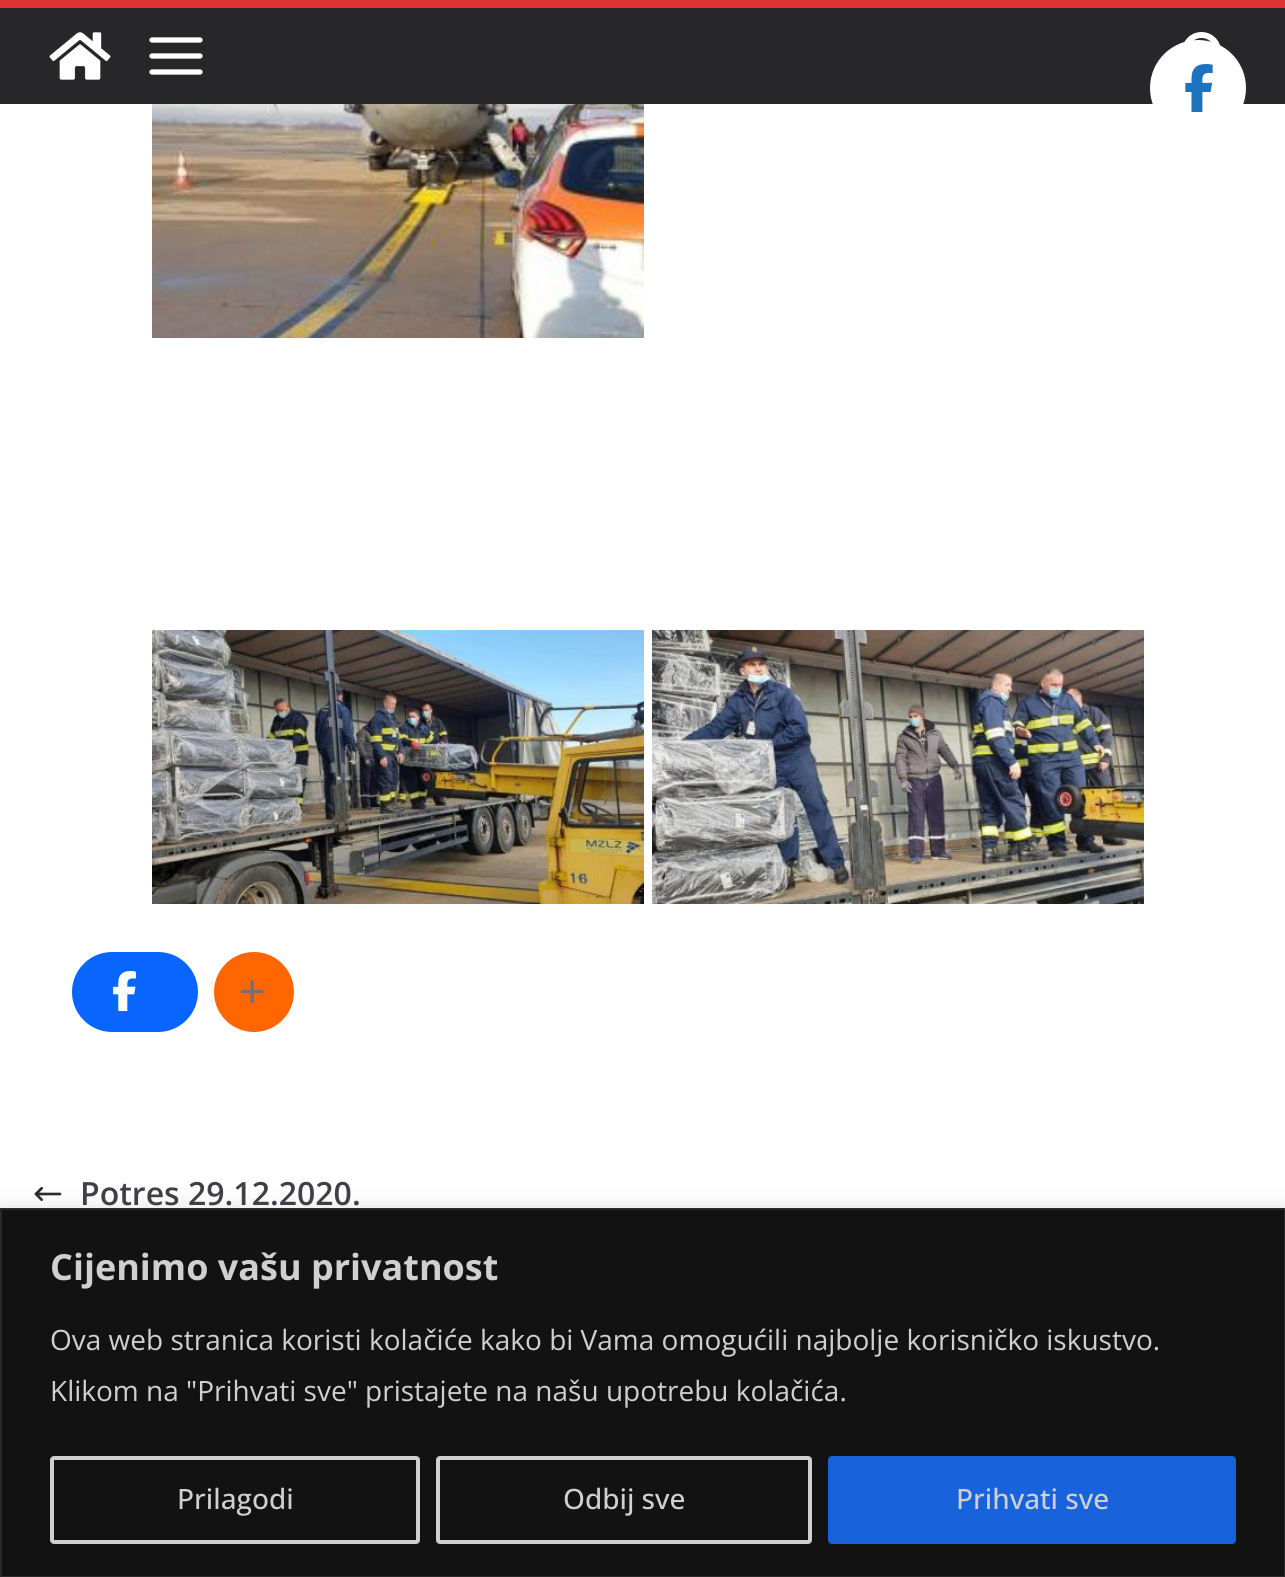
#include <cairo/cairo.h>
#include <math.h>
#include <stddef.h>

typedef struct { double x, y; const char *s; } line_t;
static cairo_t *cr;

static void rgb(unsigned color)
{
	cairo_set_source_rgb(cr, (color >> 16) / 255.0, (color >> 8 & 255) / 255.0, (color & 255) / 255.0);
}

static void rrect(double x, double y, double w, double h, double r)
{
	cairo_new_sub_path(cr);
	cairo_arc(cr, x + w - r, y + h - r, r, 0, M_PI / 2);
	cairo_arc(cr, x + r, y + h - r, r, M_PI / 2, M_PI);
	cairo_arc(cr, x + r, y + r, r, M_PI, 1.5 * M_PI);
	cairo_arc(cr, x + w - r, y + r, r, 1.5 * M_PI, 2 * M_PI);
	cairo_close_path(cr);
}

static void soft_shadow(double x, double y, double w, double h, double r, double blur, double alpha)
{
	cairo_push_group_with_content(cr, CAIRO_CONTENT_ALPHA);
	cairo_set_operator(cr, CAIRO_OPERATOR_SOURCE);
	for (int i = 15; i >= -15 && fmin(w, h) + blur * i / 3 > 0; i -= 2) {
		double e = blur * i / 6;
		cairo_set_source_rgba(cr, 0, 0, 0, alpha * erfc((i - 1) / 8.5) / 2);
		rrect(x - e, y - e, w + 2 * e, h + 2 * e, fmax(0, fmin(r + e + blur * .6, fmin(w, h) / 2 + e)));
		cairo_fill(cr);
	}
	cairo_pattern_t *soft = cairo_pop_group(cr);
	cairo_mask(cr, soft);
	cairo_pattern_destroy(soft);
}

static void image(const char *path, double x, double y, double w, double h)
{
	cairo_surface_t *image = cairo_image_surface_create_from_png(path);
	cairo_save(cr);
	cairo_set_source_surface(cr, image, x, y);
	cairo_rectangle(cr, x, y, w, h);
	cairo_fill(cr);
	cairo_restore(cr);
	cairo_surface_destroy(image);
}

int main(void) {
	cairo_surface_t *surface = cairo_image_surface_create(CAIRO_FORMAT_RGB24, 1285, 1577);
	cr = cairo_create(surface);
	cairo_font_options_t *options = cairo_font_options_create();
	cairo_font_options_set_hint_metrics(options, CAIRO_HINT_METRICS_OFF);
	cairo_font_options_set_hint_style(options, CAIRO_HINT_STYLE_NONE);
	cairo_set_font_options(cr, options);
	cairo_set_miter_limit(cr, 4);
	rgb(0xffffff);
	cairo_paint(cr);
	rgb(0x27272a);
	cairo_rectangle(cr, 0, 8, 1285, 96);
	cairo_fill(cr);
	image("img/4.png", 1184, 32, 37, 14);
	rgb(0xffffff);
	cairo_arc(cr, 1198, 88, 48, 0, 2 * M_PI);
	cairo_fill(cr);
	image("img/1.png", 1185, 64, 28, 48);
	rgb(0xdd3333);
	cairo_rectangle(cr, 0, 0, 1285, 8);
	cairo_fill(cr);
	image("img/2.png", 49, 32, 62, 48);
	image("img/3.png", 149, 37, 54, 38);
	image("img/5.png", 152, 104, 492, 234);
	image("img/6.png", 152, 630, 492, 274);
	image("img/7.png", 652, 630, 492, 274);
	rgb(0x0866ff);
	rrect(72, 952, 126, 80, 40);
	cairo_fill(cr);
	image("img/8.png", 113, 971, 23, 40);
	rgb(0xff6500);
	cairo_arc(cr, 254, 992, 40, 0, 2 * M_PI);
	cairo_fill(cr);
	image("img/9.png", 240, 980, 24, 23);
	image("img/10.png", 34, 1187, 28, 14);
	rgb(0xacabab);
	soft_shadow(0, 1206, 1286, 370, 0, 10, 0.3);
	rgb(0x121212);
	cairo_rectangle(cr, 1, 1209, 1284, 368);
	cairo_fill_preserve(cr);
	rgb(0x2a2a2a);
	cairo_stroke(cr);
	rrect(52, 1458, 366, 84, 2);
	rgb(0xd0d0d0);
	cairo_set_line_width(cr, 4);
	cairo_stroke(cr);
	rrect(438, 1458, 372, 84, 2);
	cairo_stroke(cr);
	rgb(0x1863dc);
	rrect(830, 1458, 404, 84, 2);
	cairo_fill_preserve(cr);
	cairo_stroke(cr);
	cairo_select_font_face(cr, "Open Sans SemiBold", CAIRO_FONT_SLANT_NORMAL, CAIRO_FONT_WEIGHT_NORMAL);
	cairo_set_font_size(cr, 32);
	rgb(0x3f3f46);
	cairo_move_to(cr, 80, 1205);
	cairo_show_text(cr, "Potres 29.12.2020.");
	cairo_select_font_face(cr, "Open Sans", CAIRO_FONT_SLANT_NORMAL, CAIRO_FONT_WEIGHT_BOLD);
	cairo_set_font_size(cr, 36);
	rgb(0xd0d0d0);
	cairo_move_to(cr, 50, 1280);
	cairo_show_text(cr, "Cijenimo vašu privatnost");
	cairo_select_font_face(cr, "Open Sans", CAIRO_FONT_SLANT_NORMAL, CAIRO_FONT_WEIGHT_NORMAL);
	cairo_set_font_size(cr, 28);
	cairo_move_to(cr, 50, 1350);
	cairo_show_text(cr, "Ova web stranica koristi kolačiće kako bi Vama omogućili najbolje korisničko iskustvo.");
	cairo_move_to(cr, 50, 1401);
	cairo_show_text(cr, "Klikom na \"Prihvati sve\" pristajete na našu upotrebu kolačića.");
	cairo_select_font_face(cr, "Open Sans Medium", CAIRO_FONT_SLANT_NORMAL, CAIRO_FONT_WEIGHT_NORMAL);
	{
		static const line_t items[] = {
			{177, 1509, "Prilagodi"},
			{563, 1509, "Odbij sve"},
			{956, 1509, "Prihvati sve"},
		};
		for (size_t i = 0; i < sizeof items / sizeof *items; i++) {
			cairo_move_to(cr, items[i].x, items[i].y);
			cairo_show_text(cr, items[i].s);
		}
	}
	cairo_surface_write_to_png(surface, "page.png");
	cairo_font_options_destroy(options);
	cairo_destroy(cr);
	cairo_surface_destroy(surface);
	return 0;
}
